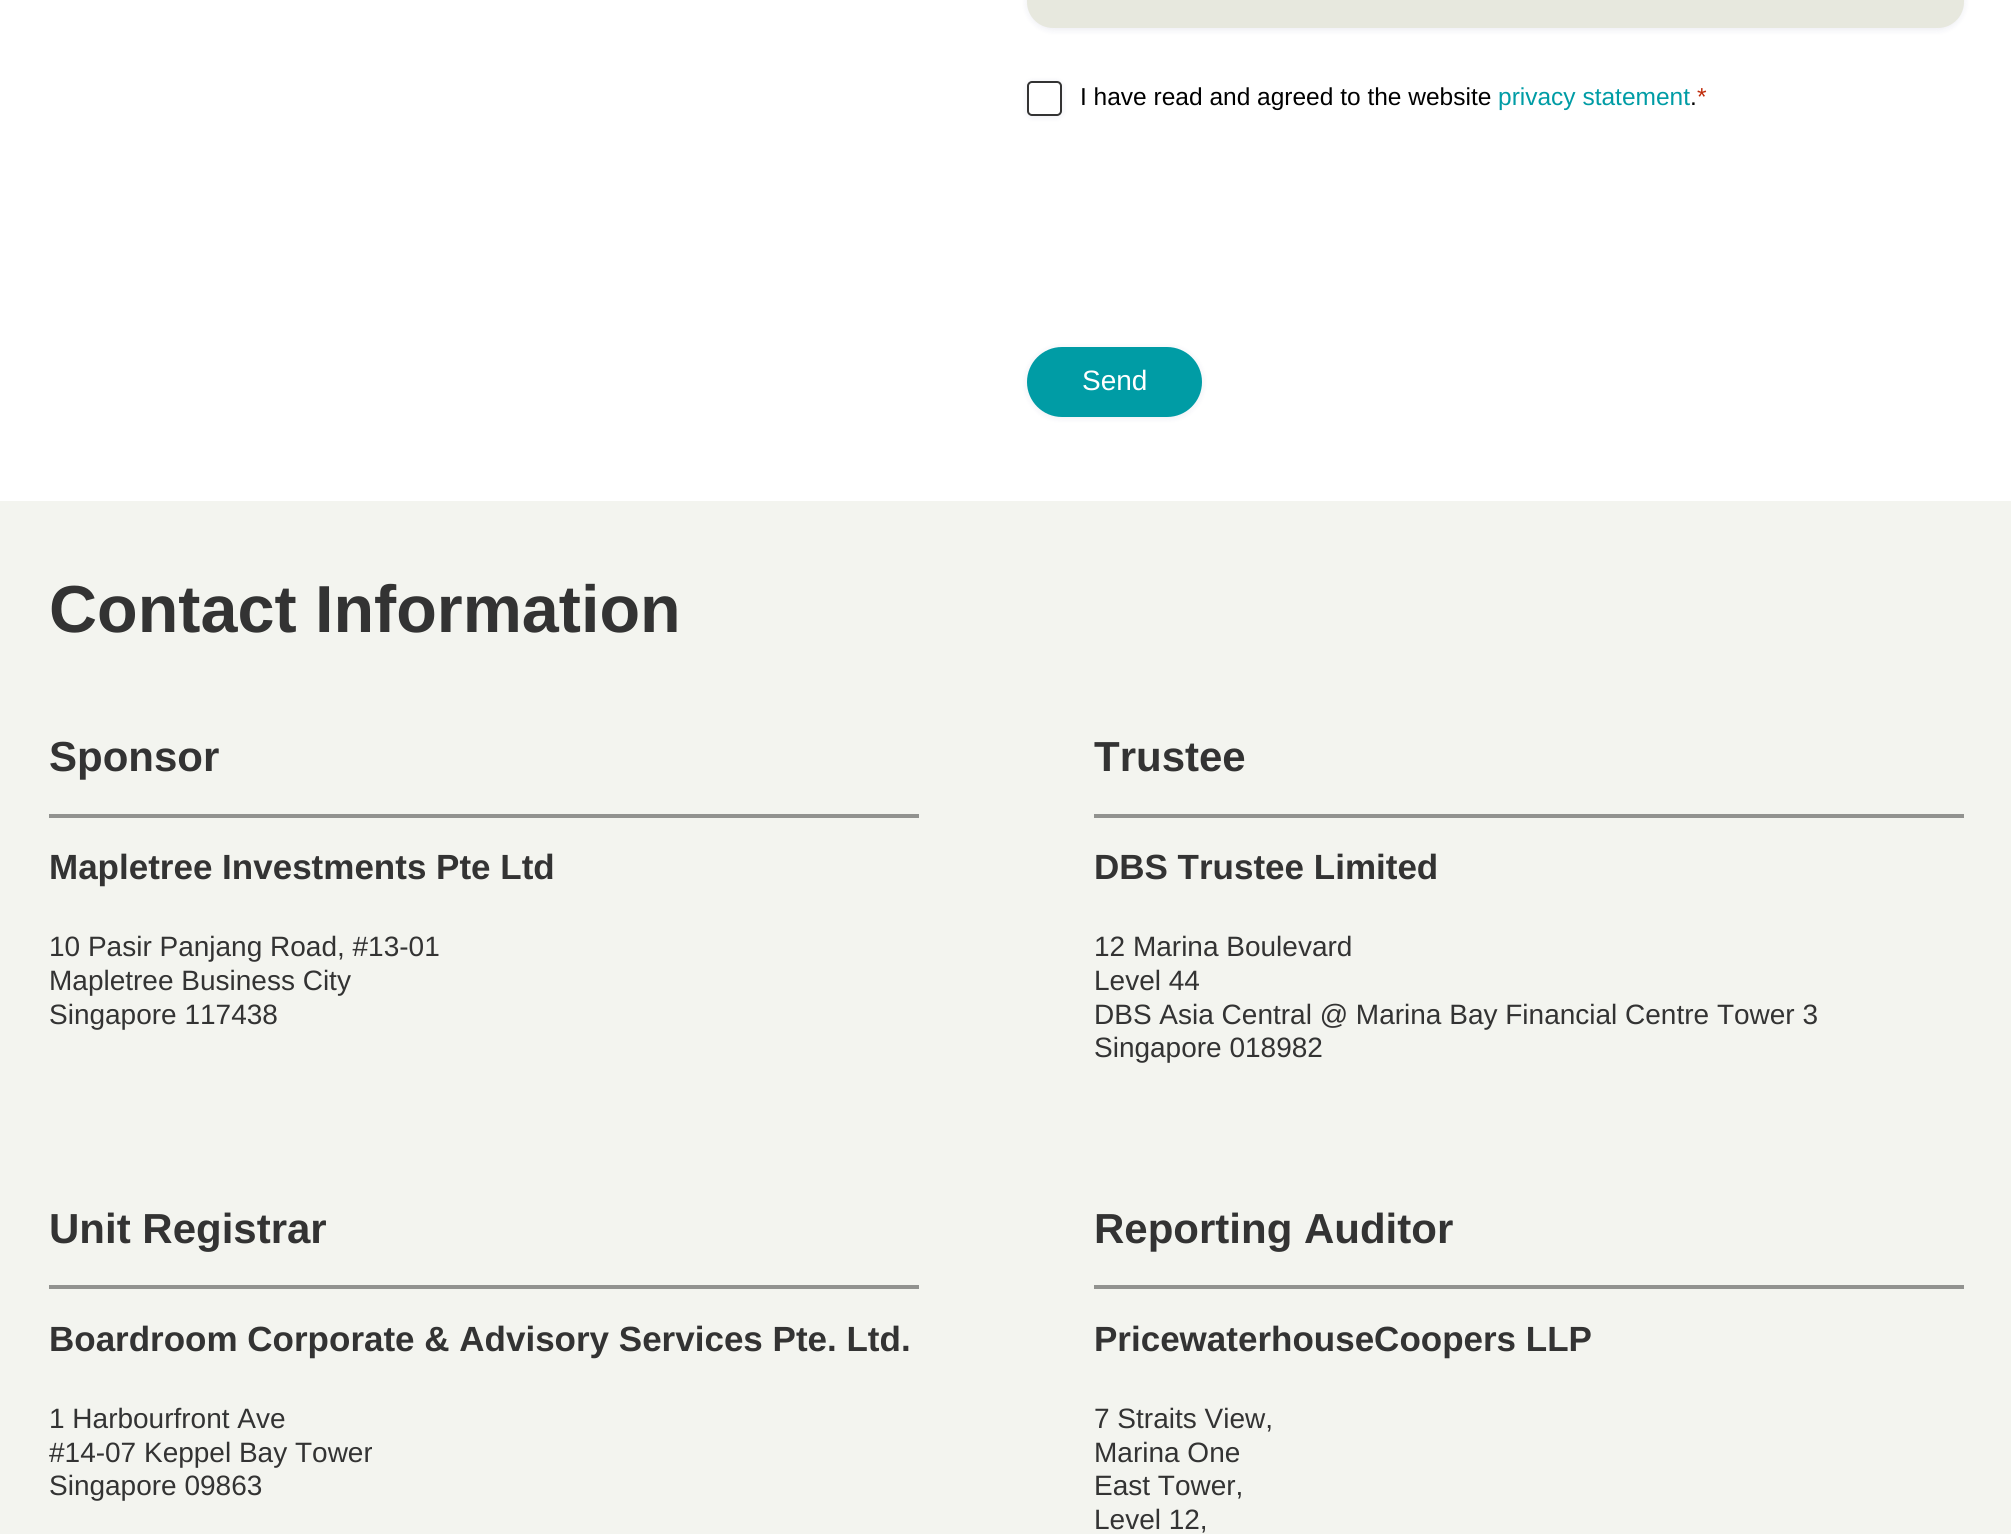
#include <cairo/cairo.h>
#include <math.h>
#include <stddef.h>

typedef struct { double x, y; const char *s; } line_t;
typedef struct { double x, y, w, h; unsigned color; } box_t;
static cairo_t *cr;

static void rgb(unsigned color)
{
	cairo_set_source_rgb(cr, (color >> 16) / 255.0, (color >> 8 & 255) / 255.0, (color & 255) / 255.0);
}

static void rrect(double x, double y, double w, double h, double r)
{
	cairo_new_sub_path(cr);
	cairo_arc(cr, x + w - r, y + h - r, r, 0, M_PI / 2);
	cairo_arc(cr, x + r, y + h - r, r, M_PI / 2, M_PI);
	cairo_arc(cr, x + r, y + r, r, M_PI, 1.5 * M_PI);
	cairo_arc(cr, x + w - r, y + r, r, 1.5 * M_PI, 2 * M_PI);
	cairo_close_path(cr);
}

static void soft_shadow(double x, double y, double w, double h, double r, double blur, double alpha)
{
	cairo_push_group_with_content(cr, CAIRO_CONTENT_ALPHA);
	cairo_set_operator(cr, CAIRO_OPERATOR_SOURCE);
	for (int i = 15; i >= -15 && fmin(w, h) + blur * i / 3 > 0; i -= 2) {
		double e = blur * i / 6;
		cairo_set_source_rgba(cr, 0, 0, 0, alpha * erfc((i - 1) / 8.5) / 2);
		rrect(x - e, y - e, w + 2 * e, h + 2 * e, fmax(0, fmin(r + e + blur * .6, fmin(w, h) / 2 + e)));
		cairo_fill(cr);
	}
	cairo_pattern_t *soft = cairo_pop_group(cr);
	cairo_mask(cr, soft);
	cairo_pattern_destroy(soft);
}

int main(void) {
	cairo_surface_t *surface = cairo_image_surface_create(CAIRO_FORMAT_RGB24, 2011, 1534);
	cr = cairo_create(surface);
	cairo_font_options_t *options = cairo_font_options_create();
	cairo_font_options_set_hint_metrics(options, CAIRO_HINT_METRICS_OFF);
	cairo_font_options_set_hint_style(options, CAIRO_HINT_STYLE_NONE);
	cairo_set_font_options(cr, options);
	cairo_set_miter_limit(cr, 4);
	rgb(0xffffff);
	cairo_paint(cr);
	rgb(0x121961);
	soft_shadow(1027, -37, 937, 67, 26, 3.5, 0.08);
	rgb(0xe7e8de);
	rrect(1027, -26, 937, 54, 26);
	cairo_fill(cr);
	cairo_save(cr);
	cairo_set_fill_rule(cr, CAIRO_FILL_RULE_EVEN_ODD);
	cairo_new_path(cr);
	cairo_move_to(cr, 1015, 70);
	cairo_line_to(cr, 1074, 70);
	cairo_line_to(cr, 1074, 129);
	cairo_line_to(cr, 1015, 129);
	cairo_close_path(cr);
	cairo_move_to(cr, 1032, 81);
	cairo_line_to(cr, 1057, 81);
	cairo_curve_to(cr, 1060, 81, 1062, 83, 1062, 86);
	cairo_line_to(cr, 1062, 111);
	cairo_curve_to(cr, 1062, 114, 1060, 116, 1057, 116);
	cairo_line_to(cr, 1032, 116);
	cairo_curve_to(cr, 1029, 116, 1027, 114, 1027, 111);
	cairo_line_to(cr, 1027, 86);
	cairo_curve_to(cr, 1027, 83, 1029, 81, 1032, 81);
	cairo_close_path(cr);
	cairo_clip(cr);
	rgb(0x121961);
	soft_shadow(1027, 82, 35, 35, 5, 3.5, 0.08);
	cairo_restore(cr);
	rrect(1028, 82, 33, 33, 4);
	rgb(0x333333);
	cairo_stroke(cr);
	rgb(0x121961);
	soft_shadow(1027, 348, 175, 70, 35, 3.5, 0.08);
	rgb(0x009ca5);
	rrect(1027, 347, 175, 70, 35);
	cairo_fill(cr);
	{
		static const box_t items[] = {
			{0, 501, 2011, 1033, 0xf3f4ef},
			{49, 814, 870, 4, 0x91928f},
			{1094, 814, 870, 4, 0x91928f},
			{49, 1285, 870, 4, 0x91928f},
			{1094, 1285, 870, 4, 0x91928f},
		};
		for (size_t i = 0; i < sizeof items / sizeof *items; i++) {
			rgb(items[i].color);
			cairo_rectangle(cr, items[i].x, items[i].y, items[i].w, items[i].h);
			cairo_fill(cr);
		}
	}
	cairo_select_font_face(cr, "Liberation Sans", CAIRO_FONT_SLANT_NORMAL, CAIRO_FONT_WEIGHT_NORMAL);
	cairo_set_font_size(cr, 24.5);
	rgb(0x000000);
	cairo_move_to(cr, 1080, 105);
	cairo_show_text(cr, "I have read and agreed to the website");
	rgb(0x009ca5);
	cairo_move_to(cr, 1498, 105);
	cairo_show_text(cr, "privacy statement");
	rgb(0xc02b0a);
	cairo_move_to(cr, 1697, 105);
	cairo_show_text(cr, "*");
	rgb(0x000000);
	cairo_move_to(cr, 1690, 105);
	cairo_show_text(cr, ".");
	cairo_set_font_size(cr, 28);
	rgb(0xffffff);
	cairo_move_to(cr, 1082, 390);
	cairo_show_text(cr, "Send");
	cairo_select_font_face(cr, "Liberation Sans", CAIRO_FONT_SLANT_NORMAL, CAIRO_FONT_WEIGHT_BOLD);
	cairo_set_font_size(cr, 66.5);
	rgb(0x333333);
	cairo_move_to(cr, 49, 632);
	cairo_show_text(cr, "Contact Information");
	cairo_set_font_size(cr, 42);
	cairo_move_to(cr, 49, 771);
	cairo_show_text(cr, "Sponsor");
	cairo_set_font_size(cr, 35);
	cairo_move_to(cr, 49, 879);
	cairo_show_text(cr, "Mapletree Investments Pte Ltd");
	cairo_select_font_face(cr, "Liberation Sans", CAIRO_FONT_SLANT_NORMAL, CAIRO_FONT_WEIGHT_NORMAL);
	cairo_set_font_size(cr, 28);
	{
		static const line_t items[] = {
			{49, 956, "10 Pasir Panjang Road, #13-01"},
			{49, 990, "Mapletree Business City"},
			{49, 1024, "Singapore 117438"},
		};
		for (size_t i = 0; i < sizeof items / sizeof *items; i++) {
			cairo_move_to(cr, items[i].x, items[i].y);
			cairo_show_text(cr, items[i].s);
		}
	}
	cairo_select_font_face(cr, "Liberation Sans", CAIRO_FONT_SLANT_NORMAL, CAIRO_FONT_WEIGHT_BOLD);
	cairo_set_font_size(cr, 42);
	cairo_move_to(cr, 1094, 771);
	cairo_show_text(cr, "Trustee");
	cairo_set_font_size(cr, 35);
	cairo_move_to(cr, 1094, 879);
	cairo_show_text(cr, "DBS Trustee Limited");
	cairo_select_font_face(cr, "Liberation Sans", CAIRO_FONT_SLANT_NORMAL, CAIRO_FONT_WEIGHT_NORMAL);
	cairo_set_font_size(cr, 28);
	{
		static const line_t items[] = {
			{1094, 956, "12 Marina Boulevard"},
			{1094, 990, "Level 44"},
			{1094, 1024, "DBS Asia Central @ Marina Bay Financial Centre Tower 3"},
			{1094, 1057, "Singapore 018982"},
		};
		for (size_t i = 0; i < sizeof items / sizeof *items; i++) {
			cairo_move_to(cr, items[i].x, items[i].y);
			cairo_show_text(cr, items[i].s);
		}
	}
	cairo_select_font_face(cr, "Liberation Sans", CAIRO_FONT_SLANT_NORMAL, CAIRO_FONT_WEIGHT_BOLD);
	cairo_set_font_size(cr, 42);
	cairo_move_to(cr, 49, 1243);
	cairo_show_text(cr, "Unit Registrar");
	cairo_set_font_size(cr, 35);
	cairo_move_to(cr, 49, 1351);
	cairo_show_text(cr, "Boardroom Corporate & Advisory Services Pte. Ltd.");
	cairo_select_font_face(cr, "Liberation Sans", CAIRO_FONT_SLANT_NORMAL, CAIRO_FONT_WEIGHT_NORMAL);
	cairo_set_font_size(cr, 28);
	{
		static const line_t items[] = {
			{49, 1428, "1 Harbourfront Ave"},
			{49, 1462, "#14-07 Keppel Bay Tower"},
			{49, 1495, "Singapore 09863"},
		};
		for (size_t i = 0; i < sizeof items / sizeof *items; i++) {
			cairo_move_to(cr, items[i].x, items[i].y);
			cairo_show_text(cr, items[i].s);
		}
	}
	cairo_select_font_face(cr, "Liberation Sans", CAIRO_FONT_SLANT_NORMAL, CAIRO_FONT_WEIGHT_BOLD);
	cairo_set_font_size(cr, 42);
	cairo_move_to(cr, 1094, 1243);
	cairo_show_text(cr, "Reporting Auditor");
	cairo_set_font_size(cr, 35);
	cairo_move_to(cr, 1094, 1351);
	cairo_show_text(cr, "PricewaterhouseCoopers LLP");
	cairo_select_font_face(cr, "Liberation Sans", CAIRO_FONT_SLANT_NORMAL, CAIRO_FONT_WEIGHT_NORMAL);
	cairo_set_font_size(cr, 28);
	{
		static const line_t items[] = {
			{1094, 1428, "7 Straits View,"},
			{1094, 1462, "Marina One"},
			{1094, 1495, "East Tower,"},
			{1094, 1529, "Level 12,"},
		};
		for (size_t i = 0; i < sizeof items / sizeof *items; i++) {
			cairo_move_to(cr, items[i].x, items[i].y);
			cairo_show_text(cr, items[i].s);
		}
	}
	cairo_surface_write_to_png(surface, "page.png");
	cairo_font_options_destroy(options);
	cairo_destroy(cr);
	cairo_surface_destroy(surface);
	return 0;
}
